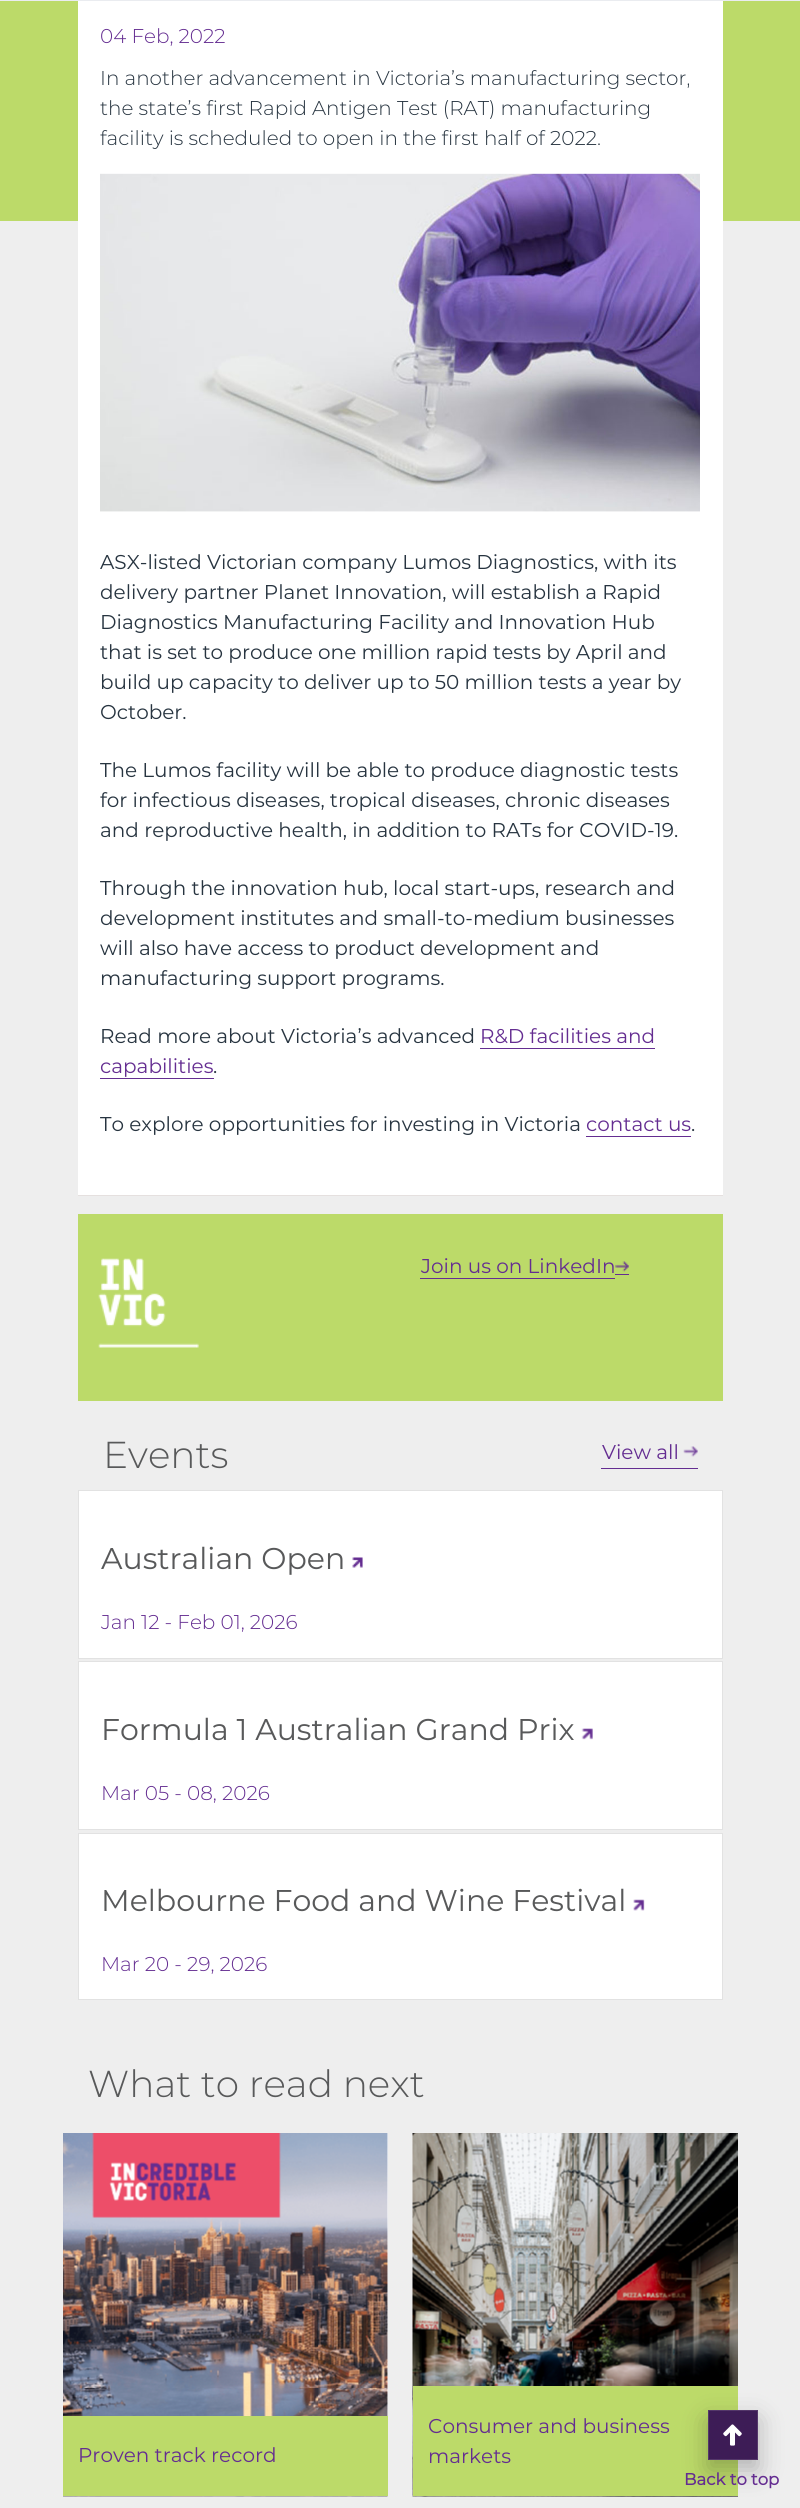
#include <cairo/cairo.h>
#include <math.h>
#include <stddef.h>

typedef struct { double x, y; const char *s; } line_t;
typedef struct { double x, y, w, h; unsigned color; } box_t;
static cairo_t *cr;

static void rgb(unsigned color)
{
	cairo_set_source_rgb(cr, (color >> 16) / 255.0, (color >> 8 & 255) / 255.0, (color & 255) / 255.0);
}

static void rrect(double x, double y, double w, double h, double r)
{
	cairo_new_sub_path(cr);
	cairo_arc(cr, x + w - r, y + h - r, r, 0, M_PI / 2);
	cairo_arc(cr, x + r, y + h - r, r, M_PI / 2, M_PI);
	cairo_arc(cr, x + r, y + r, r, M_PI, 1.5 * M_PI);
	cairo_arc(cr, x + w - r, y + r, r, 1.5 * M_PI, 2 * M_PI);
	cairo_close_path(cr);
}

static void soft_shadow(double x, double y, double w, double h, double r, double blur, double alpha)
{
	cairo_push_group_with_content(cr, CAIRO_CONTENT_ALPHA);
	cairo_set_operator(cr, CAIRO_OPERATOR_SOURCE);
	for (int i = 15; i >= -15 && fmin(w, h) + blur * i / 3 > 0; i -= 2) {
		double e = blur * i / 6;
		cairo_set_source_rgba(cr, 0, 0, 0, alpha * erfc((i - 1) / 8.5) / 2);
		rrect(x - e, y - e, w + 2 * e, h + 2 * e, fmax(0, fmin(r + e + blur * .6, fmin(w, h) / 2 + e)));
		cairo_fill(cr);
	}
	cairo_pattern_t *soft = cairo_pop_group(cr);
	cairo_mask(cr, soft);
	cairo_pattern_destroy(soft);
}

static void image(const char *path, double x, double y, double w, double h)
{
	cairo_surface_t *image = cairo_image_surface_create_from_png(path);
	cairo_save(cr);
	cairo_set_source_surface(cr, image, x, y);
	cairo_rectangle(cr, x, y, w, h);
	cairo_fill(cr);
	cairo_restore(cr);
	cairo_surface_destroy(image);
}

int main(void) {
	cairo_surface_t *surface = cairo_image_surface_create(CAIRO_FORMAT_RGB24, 800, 2508);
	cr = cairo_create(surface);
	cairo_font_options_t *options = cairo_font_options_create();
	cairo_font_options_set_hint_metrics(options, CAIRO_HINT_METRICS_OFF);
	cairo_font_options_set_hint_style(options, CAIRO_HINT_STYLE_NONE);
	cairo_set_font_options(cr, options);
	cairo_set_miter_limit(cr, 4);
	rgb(0xeeeeee);
	cairo_paint(cr);
	{
		static const box_t items[] = {
			{0, 1, 800, 220, 0xbcda69},
			{0, 0, 800, 1, 0xeaecf0},
			{78, 1, 645, 1194, 0xffffff},
			{78, 1195, 645, 1, 0xe5e0df},
		};
		for (size_t i = 0; i < sizeof items / sizeof *items; i++) {
			rgb(items[i].color);
			cairo_rectangle(cr, items[i].x, items[i].y, items[i].w, items[i].h);
			cairo_fill(cr);
		}
	}
	image("img/1.png", 100, 173, 600, 339);
	{
		static const box_t items[] = {
			{480, 1048, 175, 1, 0x642d91},
			{100, 1078, 114, 1, 0x642d91},
			{586, 1136, 105, 1, 0x642d91},
			{78, 1214, 645, 187, 0xbcda69},
		};
		for (size_t i = 0; i < sizeof items / sizeof *items; i++) {
			rgb(items[i].color);
			cairo_rectangle(cr, items[i].x, items[i].y, items[i].w, items[i].h);
			cairo_fill(cr);
		}
	}
	image("img/2.png", 98, 1258, 101, 90);
	rgb(0x642d91);
	cairo_rectangle(cr, 420, 1278, 195, 1);
	cairo_fill(cr);
	cairo_rectangle(cr, 615, 1274, 14, 1);
	cairo_fill(cr);
	image("img/3.png", 615, 1261, 14, 11);
	cairo_rectangle(cr, 601, 1468, 97, 1);
	cairo_fill(cr);
	image("img/4.png", 683, 1446, 15, 11);
	rgb(0xffffff);
	cairo_rectangle(cr, 78.5, 1490.5, 644, 168);
	cairo_fill_preserve(cr);
	rgb(0xe2e2e2);
	cairo_set_line_width(cr, 1);
	cairo_stroke(cr);
	image("img/5.png", 352, 1557, 11, 11);
	rgb(0xffffff);
	cairo_rectangle(cr, 78.5, 1661.5, 644, 168);
	cairo_fill_preserve(cr);
	rgb(0xe2e2e2);
	cairo_stroke(cr);
	image("img/6.png", 581, 1728, 12, 12);
	rgb(0xffffff);
	cairo_rectangle(cr, 78.5, 1833.5, 644, 166);
	cairo_fill_preserve(cr);
	rgb(0xe2e2e2);
	cairo_stroke(cr);
	image("img/7.png", 633, 1899, 12, 12);
	rgb(0xffffff);
	cairo_rectangle(cr, 387, 2133, 1, 283);
	cairo_fill(cr);
	image("img/8.png", 63, 2133, 325, 364);
	rgb(0xbcda69);
	cairo_rectangle(cr, 63, 2416, 325, 80);
	cairo_fill(cr);
	image("img/9.png", 412, 2133, 326, 364);
	cairo_rectangle(cr, 413, 2386, 325, 110);
	cairo_fill(cr);
	rgb(0x000000);
	soft_shadow(708, 2420, 50, 50, 0, 12.5, 0.25);
	rgb(0x3d1c56);
	cairo_rectangle(cr, 708.5, 2410.5, 49, 49);
	cairo_fill_preserve(cr);
	rgb(0x54376a);
	cairo_stroke(cr);
	image("img/10.png", 723, 2424, 19, 22);
	cairo_select_font_face(cr, "Montserrat Light", CAIRO_FONT_SLANT_NORMAL, CAIRO_FONT_WEIGHT_NORMAL);
	cairo_set_font_size(cr, 20);
	rgb(0x642d91);
	cairo_move_to(cr, 100, 43);
	cairo_show_text(cr, "04 Feb, 2022");
	rgb(0x273440);
	{
		static const line_t items[] = {
			{100, 85, "In another advancement in Victoria’s manufacturing sector,"},
			{100, 115, "the state’s first Rapid Antigen Test (RAT) manufacturing"},
			{100, 145, "facility is scheduled to open in the first half of 2022."},
		};
		for (size_t i = 0; i < sizeof items / sizeof *items; i++) {
			cairo_move_to(cr, items[i].x, items[i].y);
			cairo_show_text(cr, items[i].s);
		}
	}
	cairo_select_font_face(cr, "Montserrat", CAIRO_FONT_SLANT_NORMAL, CAIRO_FONT_WEIGHT_NORMAL);
	{
		static const line_t items[] = {
			{100, 569, "ASX-listed Victorian company Lumos Diagnostics, with its"},
			{100, 599, "delivery partner Planet Innovation, will establish a Rapid"},
			{100, 629, "Diagnostics Manufacturing Facility and Innovation Hub"},
			{100, 659, "that is set to produce one million rapid tests by April and"},
			{100, 689, "build up capacity to deliver up to 50 million tests a year by"},
			{100, 719, "October."},
			{100, 777, "The Lumos facility will be able to produce diagnostic tests"},
			{100, 807, "for infectious diseases, tropical diseases, chronic diseases"},
			{100, 837, "and reproductive health, in addition to RATs for COVID-19."},
			{100, 895, "Through the innovation hub, local start-ups, research and"},
			{100, 925, "development institutes and small-to-medium businesses"},
			{100, 955, "will also have access to product development and"},
			{100, 985, "manufacturing support programs."},
			{100, 1043, "Read more about Victoria’s advanced"},
		};
		for (size_t i = 0; i < sizeof items / sizeof *items; i++) {
			cairo_move_to(cr, items[i].x, items[i].y);
			cairo_show_text(cr, items[i].s);
		}
	}
	rgb(0x642d91);
	cairo_move_to(cr, 480, 1043);
	cairo_show_text(cr, "R&D facilities and");
	cairo_move_to(cr, 100, 1073);
	cairo_show_text(cr, "capabilities");
	rgb(0x273440);
	cairo_move_to(cr, 213, 1073);
	cairo_show_text(cr, ".");
	cairo_move_to(cr, 100, 1131);
	cairo_show_text(cr, "To explore opportunities for investing in Victoria");
	rgb(0x642d91);
	cairo_move_to(cr, 586, 1131);
	cairo_show_text(cr, "contact us");
	rgb(0x273440);
	cairo_move_to(cr, 691, 1131);
	cairo_show_text(cr, ".");
	rgb(0x642d91);
	cairo_move_to(cr, 421, 1273);
	cairo_show_text(cr, "Join us on LinkedIn");
	cairo_select_font_face(cr, "Montserrat Light", CAIRO_FONT_SLANT_NORMAL, CAIRO_FONT_WEIGHT_NORMAL);
	cairo_set_font_size(cr, 37.5);
	rgb(0x58595a);
	cairo_move_to(cr, 103, 1468);
	cairo_show_text(cr, "Events");
	cairo_select_font_face(cr, "Montserrat", CAIRO_FONT_SLANT_NORMAL, CAIRO_FONT_WEIGHT_NORMAL);
	cairo_set_font_size(cr, 20);
	rgb(0x642d91);
	cairo_move_to(cr, 602, 1459);
	cairo_show_text(cr, "View all");
	cairo_set_font_size(cr, 30);
	rgb(0x58595a);
	cairo_move_to(cr, 101, 1569);
	cairo_show_text(cr, "Australian Open");
	cairo_select_font_face(cr, "Montserrat Light", CAIRO_FONT_SLANT_NORMAL, CAIRO_FONT_WEIGHT_NORMAL);
	cairo_set_font_size(cr, 20);
	rgb(0x642d91);
	cairo_move_to(cr, 101, 1629);
	cairo_show_text(cr, "Jan 12 - Feb 01, 2026");
	cairo_select_font_face(cr, "Montserrat", CAIRO_FONT_SLANT_NORMAL, CAIRO_FONT_WEIGHT_NORMAL);
	cairo_set_font_size(cr, 30);
	rgb(0x58595a);
	cairo_move_to(cr, 101, 1740);
	cairo_show_text(cr, "Formula 1 Australian Grand Prix");
	cairo_select_font_face(cr, "Montserrat Light", CAIRO_FONT_SLANT_NORMAL, CAIRO_FONT_WEIGHT_NORMAL);
	cairo_set_font_size(cr, 20);
	rgb(0x642d91);
	cairo_move_to(cr, 101, 1800);
	cairo_show_text(cr, "Mar 05 - 08, 2026");
	cairo_select_font_face(cr, "Montserrat", CAIRO_FONT_SLANT_NORMAL, CAIRO_FONT_WEIGHT_NORMAL);
	cairo_set_font_size(cr, 30);
	rgb(0x58595a);
	cairo_move_to(cr, 101, 1911);
	cairo_show_text(cr, "Melbourne Food and Wine Festival");
	cairo_select_font_face(cr, "Montserrat Light", CAIRO_FONT_SLANT_NORMAL, CAIRO_FONT_WEIGHT_NORMAL);
	cairo_set_font_size(cr, 20);
	rgb(0x642d91);
	cairo_move_to(cr, 101, 1971);
	cairo_show_text(cr, "Mar 20 - 29, 2026");
	cairo_set_font_size(cr, 37.5);
	rgb(0x58595a);
	cairo_move_to(cr, 88, 2097);
	cairo_show_text(cr, "What to read next");
	cairo_select_font_face(cr, "Montserrat", CAIRO_FONT_SLANT_NORMAL, CAIRO_FONT_WEIGHT_NORMAL);
	cairo_set_font_size(cr, 20);
	rgb(0x642d91);
	{
		static const line_t items[] = {
			{78, 2462, "Proven track record"},
			{428, 2433, "Consumer and business"},
			{428, 2463, "markets"},
		};
		for (size_t i = 0; i < sizeof items / sizeof *items; i++) {
			cairo_move_to(cr, items[i].x, items[i].y);
			cairo_show_text(cr, items[i].s);
		}
	}
	cairo_select_font_face(cr, "Montserrat", CAIRO_FONT_SLANT_NORMAL, CAIRO_FONT_WEIGHT_BOLD);
	cairo_set_font_size(cr, 16.5);
	cairo_move_to(cr, 684, 2485);
	cairo_show_text(cr, "Back to top");
	cairo_surface_write_to_png(surface, "page.png");
	cairo_font_options_destroy(options);
	cairo_destroy(cr);
	cairo_surface_destroy(surface);
	return 0;
}
